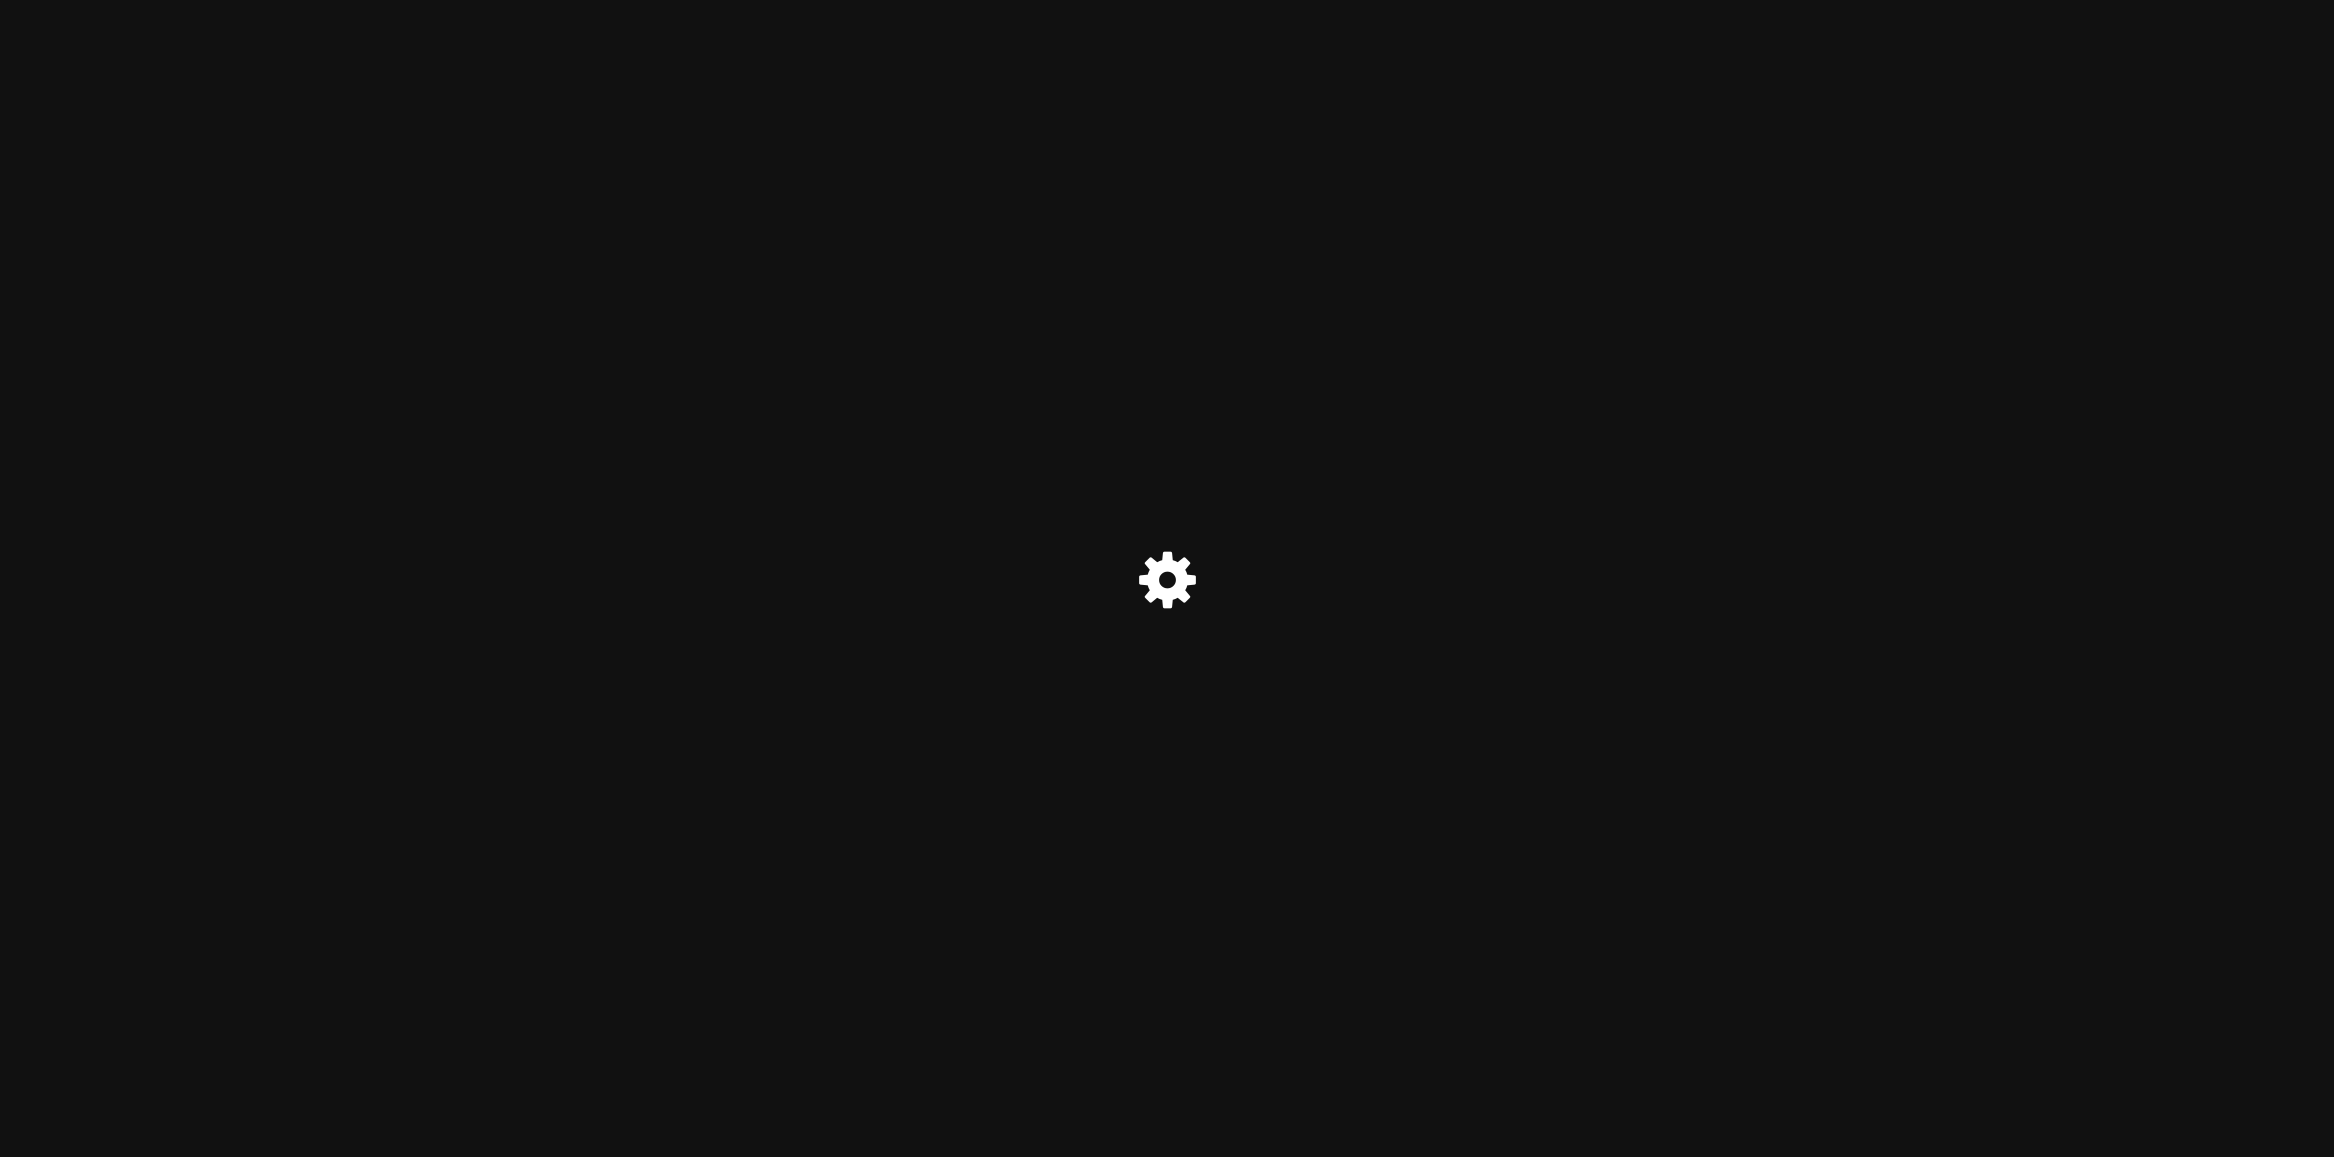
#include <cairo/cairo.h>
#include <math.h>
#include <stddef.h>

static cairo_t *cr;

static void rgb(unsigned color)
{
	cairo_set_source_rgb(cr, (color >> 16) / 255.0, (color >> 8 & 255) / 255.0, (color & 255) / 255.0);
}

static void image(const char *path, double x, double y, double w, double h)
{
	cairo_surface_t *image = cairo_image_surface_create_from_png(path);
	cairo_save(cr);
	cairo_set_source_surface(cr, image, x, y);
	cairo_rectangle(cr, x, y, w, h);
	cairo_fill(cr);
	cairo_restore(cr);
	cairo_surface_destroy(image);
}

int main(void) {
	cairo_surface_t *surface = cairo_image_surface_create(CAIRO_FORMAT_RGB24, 2334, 1157);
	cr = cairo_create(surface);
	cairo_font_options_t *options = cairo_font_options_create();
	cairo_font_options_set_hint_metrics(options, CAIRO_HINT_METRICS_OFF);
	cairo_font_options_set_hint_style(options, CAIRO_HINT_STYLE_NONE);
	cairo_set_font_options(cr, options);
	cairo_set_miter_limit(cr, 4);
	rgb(0x111111);
	cairo_paint(cr);
	image("img/1.png", 1139, 551, 57, 58);
	cairo_surface_write_to_png(surface, "page.png");
	cairo_font_options_destroy(options);
	cairo_destroy(cr);
	cairo_surface_destroy(surface);
	return 0;
}
